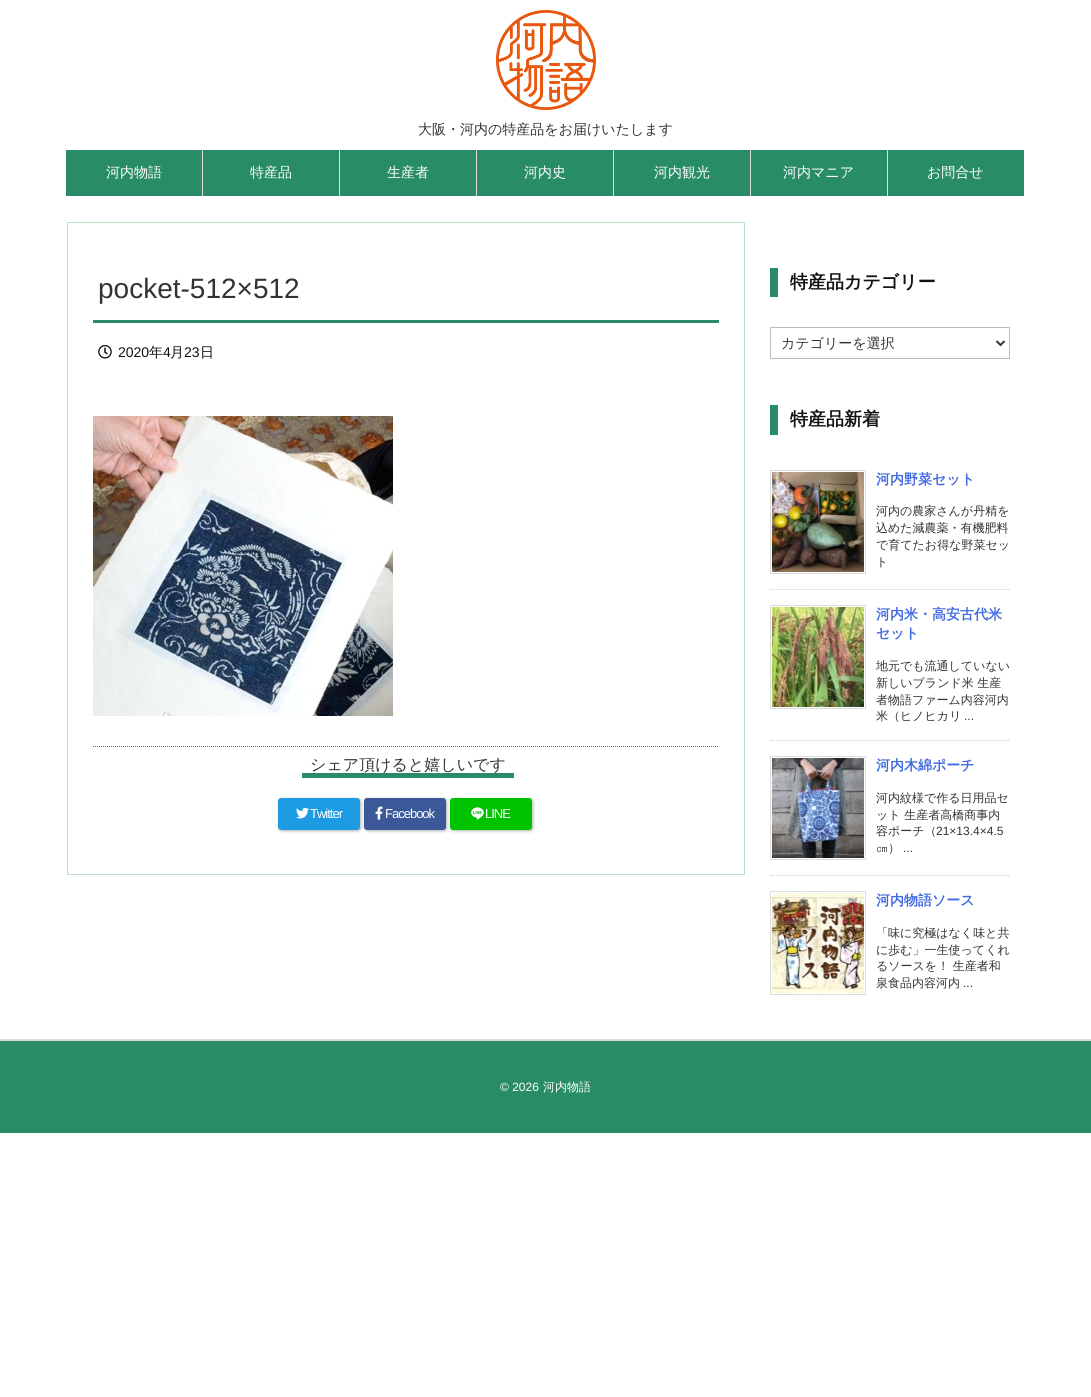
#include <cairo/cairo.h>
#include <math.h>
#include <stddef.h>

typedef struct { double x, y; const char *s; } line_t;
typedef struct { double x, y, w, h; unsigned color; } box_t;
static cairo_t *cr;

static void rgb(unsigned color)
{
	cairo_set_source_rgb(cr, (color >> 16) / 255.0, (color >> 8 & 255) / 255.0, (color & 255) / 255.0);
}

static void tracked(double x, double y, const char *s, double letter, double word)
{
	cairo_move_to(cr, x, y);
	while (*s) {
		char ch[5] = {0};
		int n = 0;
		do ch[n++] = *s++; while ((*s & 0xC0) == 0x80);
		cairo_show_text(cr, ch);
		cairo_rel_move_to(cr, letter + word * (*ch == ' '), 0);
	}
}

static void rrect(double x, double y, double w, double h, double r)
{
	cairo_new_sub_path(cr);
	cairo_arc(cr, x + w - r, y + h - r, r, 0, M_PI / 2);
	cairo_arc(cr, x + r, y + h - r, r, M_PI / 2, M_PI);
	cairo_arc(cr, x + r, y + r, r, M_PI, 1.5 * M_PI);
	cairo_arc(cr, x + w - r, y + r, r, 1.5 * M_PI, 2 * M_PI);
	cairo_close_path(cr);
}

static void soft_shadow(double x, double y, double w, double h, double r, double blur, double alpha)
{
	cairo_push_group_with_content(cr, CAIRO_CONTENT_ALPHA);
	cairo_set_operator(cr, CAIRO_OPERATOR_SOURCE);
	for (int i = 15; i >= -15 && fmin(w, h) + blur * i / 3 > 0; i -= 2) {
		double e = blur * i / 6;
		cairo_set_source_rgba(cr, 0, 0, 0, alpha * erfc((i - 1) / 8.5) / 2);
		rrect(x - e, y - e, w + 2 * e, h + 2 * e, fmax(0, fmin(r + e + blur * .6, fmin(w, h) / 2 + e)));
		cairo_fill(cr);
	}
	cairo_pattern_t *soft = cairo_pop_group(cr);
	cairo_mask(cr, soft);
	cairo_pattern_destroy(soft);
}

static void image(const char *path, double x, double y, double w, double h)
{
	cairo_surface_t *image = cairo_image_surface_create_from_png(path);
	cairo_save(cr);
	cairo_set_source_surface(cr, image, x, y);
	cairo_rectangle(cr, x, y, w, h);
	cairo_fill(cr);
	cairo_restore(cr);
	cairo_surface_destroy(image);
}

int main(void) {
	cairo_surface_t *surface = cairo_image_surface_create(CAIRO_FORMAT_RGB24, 1091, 1397);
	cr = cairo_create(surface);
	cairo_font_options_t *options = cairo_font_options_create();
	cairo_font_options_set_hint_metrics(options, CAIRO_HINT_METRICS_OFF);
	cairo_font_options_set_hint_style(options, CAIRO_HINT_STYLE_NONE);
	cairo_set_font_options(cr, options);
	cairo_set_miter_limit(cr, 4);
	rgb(0xffffff);
	cairo_paint(cr);
	image("img/1.png", 496, 10, 100, 100);
	{
		static const box_t items[] = {
			{66, 150, 958, 46, 0x288c66},
			{202, 150, 1, 46, 0xdddddd},
			{339, 150, 1, 46, 0xdddddd},
			{476, 150, 1, 46, 0xdddddd},
			{613, 150, 1, 46, 0xdddddd},
			{750, 150, 1, 46, 0xdddddd},
			{887, 150, 1, 46, 0xdddddd},
		};
		for (size_t i = 0; i < sizeof items / sizeof *items; i++) {
			rgb(items[i].color);
			cairo_rectangle(cr, items[i].x, items[i].y, items[i].w, items[i].h);
			cairo_fill(cr);
		}
	}
	cairo_rectangle(cr, 67.5, 222.5, 677, 652);
	rgb(0xbee0c2);
	cairo_set_line_width(cr, 1);
	cairo_stroke(cr);
	rgb(0x288c66);
	cairo_rectangle(cr, 93, 320, 626, 3);
	cairo_fill(cr);
	image("img/2.png", 98, 345, 14, 14);
	image("img/3.png", 93, 416, 300, 300);
	cairo_new_path(cr);
	cairo_move_to(cr, 93, 746.5);
	cairo_line_to(cr, 719, 746.5);
	cairo_set_dash(cr, (double[]){1, 1}, 2, 0);
	cairo_stroke(cr);
	cairo_rectangle(cr, 302, 773, 212, 5);
	cairo_fill(cr);
	rgb(0x000000);
	soft_shadow(279, 799, 82, 32, 3, 1.5, 0.3);
	rgb(0x1c9be2);
	rrect(278, 798, 82, 32, 3);
	cairo_fill(cr);
	image("img/4.png", 296, 807, 13, 12);
	rgb(0x000000);
	soft_shadow(365, 799, 82, 32, 3, 1.5, 0.3);
	rgb(0x3b5998);
	rrect(364, 798, 82, 32, 3);
	cairo_fill(cr);
	image("img/5.png", 375, 806, 8, 14);
	rgb(0x000000);
	soft_shadow(451, 799, 82, 32, 3, 1.5, 0.3);
	rgb(0x00c300);
	rrect(450, 798, 82, 32, 3);
	cairo_fill(cr);
	image("img/6.png", 471, 807, 13, 13);
	rgb(0x288c66);
	cairo_rectangle(cr, 770, 268, 8, 29);
	cairo_fill(cr);
	cairo_rectangle(cr, 770.5, 327.5, 239, 31);
	rgb(0xbbbbbb);
	cairo_set_dash(cr, NULL, 0, 0);
	cairo_stroke(cr);
	cairo_new_path(cr);
	cairo_move_to(cr, 996.5, 341);
	cairo_line_to(cr, 1000.5, 345);
	cairo_line_to(cr, 1004.5, 341);
	rgb(0x333333);
	cairo_set_line_width(cr, 2);
	cairo_stroke(cr);
	rgb(0x288c66);
	cairo_rectangle(cr, 770, 405, 8, 30);
	cairo_fill(cr);
	cairo_new_path(cr);
	cairo_move_to(cr, 770, 589.5);
	cairo_line_to(cr, 1010, 589.5);
	rgb(0xcccccc);
	cairo_set_line_width(cr, 1);
	cairo_set_dash(cr, (double[]){1, 1}, 2, 0);
	cairo_stroke(cr);
	cairo_rectangle(cr, 770.5, 470.5, 95, 103);
	rgb(0xdddddd);
	cairo_set_dash(cr, NULL, 0, 0);
	cairo_stroke(cr);
	image("img/7.png", 772, 472, 92, 100);
	cairo_new_path(cr);
	cairo_move_to(cr, 770, 740.5);
	cairo_line_to(cr, 1010, 740.5);
	rgb(0xcccccc);
	cairo_set_dash(cr, (double[]){1, 1}, 2, 0);
	cairo_stroke(cr);
	cairo_rectangle(cr, 770.5, 605.5, 95, 103);
	rgb(0xdddddd);
	cairo_set_dash(cr, NULL, 0, 0);
	cairo_stroke(cr);
	image("img/8.png", 772, 607, 92, 100);
	cairo_new_path(cr);
	cairo_move_to(cr, 770, 875.5);
	cairo_line_to(cr, 1010, 875.5);
	rgb(0xcccccc);
	cairo_set_dash(cr, (double[]){1, 1}, 2, 0);
	cairo_stroke(cr);
	cairo_rectangle(cr, 770.5, 756.5, 95, 103);
	rgb(0xdddddd);
	cairo_set_dash(cr, NULL, 0, 0);
	cairo_stroke(cr);
	image("img/9.png", 772, 758, 92, 100);
	cairo_rectangle(cr, 770.5, 891.5, 95, 103);
	cairo_stroke(cr);
	image("img/10.png", 772, 893, 92, 100);
	cairo_rectangle(cr, 0, 1039, 1091, 2);
	cairo_fill(cr);
	rgb(0x288c66);
	cairo_rectangle(cr, 0, 1041, 1091, 92);
	cairo_fill(cr);
	cairo_select_font_face(cr, "WenQuanYi Zen Hei Medium", CAIRO_FONT_SLANT_NORMAL, CAIRO_FONT_WEIGHT_NORMAL);
	cairo_set_font_size(cr, 14);
	rgb(0x333333);
	cairo_move_to(cr, 418, 134);
	cairo_show_text(cr, "大阪・河内の特産品をお届けいたします");
	rgb(0xffffff);
	{
		static const line_t items[] = {
			{106, 177, "河内物語"},
			{250, 177, "特産品"},
			{387, 177, "生産者"},
			{524, 177, "河内史"},
			{654, 177, "河内観光"},
			{783, 177, "河内マニア"},
			{927, 177, "お問合せ"},
		};
		for (size_t i = 0; i < sizeof items / sizeof *items; i++) {
			cairo_move_to(cr, items[i].x, items[i].y);
			cairo_show_text(cr, items[i].s);
		}
	}
	cairo_select_font_face(cr, "Liberation Sans", CAIRO_FONT_SLANT_NORMAL, CAIRO_FONT_WEIGHT_NORMAL);
	cairo_set_font_size(cr, 28);
	rgb(0x333333);
	cairo_move_to(cr, 98, 298);
	cairo_show_text(cr, "pocket-512×512");
	cairo_set_font_size(cr, 14);
	rgb(0x111111);
	cairo_move_to(cr, 118, 357);
	cairo_show_text(cr, "2020");
	cairo_select_font_face(cr, "WenQuanYi Zen Hei Medium", CAIRO_FONT_SLANT_NORMAL, CAIRO_FONT_WEIGHT_NORMAL);
	cairo_move_to(cr, 149, 357);
	cairo_show_text(cr, "年");
	cairo_select_font_face(cr, "Liberation Sans", CAIRO_FONT_SLANT_NORMAL, CAIRO_FONT_WEIGHT_NORMAL);
	cairo_move_to(cr, 163, 357);
	cairo_show_text(cr, "4");
	cairo_select_font_face(cr, "WenQuanYi Zen Hei Medium", CAIRO_FONT_SLANT_NORMAL, CAIRO_FONT_WEIGHT_NORMAL);
	cairo_move_to(cr, 170, 357);
	cairo_show_text(cr, "月");
	cairo_select_font_face(cr, "Liberation Sans", CAIRO_FONT_SLANT_NORMAL, CAIRO_FONT_WEIGHT_NORMAL);
	cairo_move_to(cr, 184, 357);
	cairo_show_text(cr, "23");
	cairo_select_font_face(cr, "WenQuanYi Zen Hei Medium", CAIRO_FONT_SLANT_NORMAL, CAIRO_FONT_WEIGHT_NORMAL);
	cairo_move_to(cr, 200, 357);
	cairo_show_text(cr, "日");
	cairo_set_font_size(cr, 16);
	rgb(0x333333);
	cairo_move_to(cr, 310, 770);
	cairo_show_text(cr, "シェア頂けると嬉しいです");
	cairo_select_font_face(cr, "Liberation Sans", CAIRO_FONT_SLANT_NORMAL, CAIRO_FONT_WEIGHT_NORMAL);
	cairo_set_font_size(cr, 13);
	rgb(0xffffff);
	{
		static const line_t items[] = {
			{310, 818, "Twitter"},
			{385, 818, "Facebook"},
			{485, 818, "LINE"},
		};
		for (size_t i = 0; i < sizeof items / sizeof *items; i++) {
			tracked(items[i].x, items[i].y, items[i].s, -1, 0);
		}
	}
	cairo_select_font_face(cr, "WenQuanYi Zen Hei", CAIRO_FONT_SLANT_NORMAL, CAIRO_FONT_WEIGHT_BOLD);
	cairo_set_font_size(cr, 18);
	rgb(0x111111);
	cairo_move_to(cr, 790, 288);
	cairo_show_text(cr, "特産品カテゴリー");
	cairo_select_font_face(cr, "WenQuanYi Zen Hei Medium", CAIRO_FONT_SLANT_NORMAL, CAIRO_FONT_WEIGHT_NORMAL);
	cairo_set_font_size(cr, 14);
	rgb(0x333333);
	cairo_move_to(cr, 781, 348);
	cairo_show_text(cr, "カテゴリーを選択");
	cairo_select_font_face(cr, "WenQuanYi Zen Hei", CAIRO_FONT_SLANT_NORMAL, CAIRO_FONT_WEIGHT_BOLD);
	cairo_set_font_size(cr, 18);
	rgb(0x111111);
	cairo_move_to(cr, 790, 425);
	cairo_show_text(cr, "特産品新着");
	cairo_set_font_size(cr, 14);
	rgb(0x4169e1);
	cairo_move_to(cr, 876, 484);
	cairo_show_text(cr, "河内野菜セット");
	cairo_select_font_face(cr, "WenQuanYi Zen Hei Medium", CAIRO_FONT_SLANT_NORMAL, CAIRO_FONT_WEIGHT_NORMAL);
	cairo_set_font_size(cr, 12);
	rgb(0x333333);
	{
		static const line_t items[] = {
			{876, 515, "河内の農家さんが丹精を"},
			{876, 532, "込めた減農薬・有機肥料"},
			{876, 549, "で育てたお得な野菜セッ"},
			{876, 566, "ト"},
		};
		for (size_t i = 0; i < sizeof items / sizeof *items; i++) {
			cairo_move_to(cr, items[i].x, items[i].y);
			cairo_show_text(cr, items[i].s);
		}
	}
	cairo_select_font_face(cr, "WenQuanYi Zen Hei", CAIRO_FONT_SLANT_NORMAL, CAIRO_FONT_WEIGHT_BOLD);
	cairo_set_font_size(cr, 14);
	rgb(0x4169e1);
	cairo_move_to(cr, 876, 619);
	cairo_show_text(cr, "河内米・高安古代米");
	cairo_move_to(cr, 876, 638);
	cairo_show_text(cr, "セット");
	cairo_select_font_face(cr, "WenQuanYi Zen Hei Medium", CAIRO_FONT_SLANT_NORMAL, CAIRO_FONT_WEIGHT_NORMAL);
	cairo_set_font_size(cr, 12);
	rgb(0x333333);
	{
		static const line_t items[] = {
			{876, 670, "地元でも流通していない"},
			{876, 687, "新しいブランド米 生産"},
			{876, 704, "者物語ファーム内容河内"},
			{876, 720, "米（ヒノヒカリ"},
		};
		for (size_t i = 0; i < sizeof items / sizeof *items; i++) {
			cairo_move_to(cr, items[i].x, items[i].y);
			cairo_show_text(cr, items[i].s);
		}
	}
	cairo_select_font_face(cr, "Liberation Sans", CAIRO_FONT_SLANT_NORMAL, CAIRO_FONT_WEIGHT_NORMAL);
	cairo_move_to(cr, 964, 720);
	cairo_show_text(cr, "...");
	cairo_select_font_face(cr, "WenQuanYi Zen Hei", CAIRO_FONT_SLANT_NORMAL, CAIRO_FONT_WEIGHT_BOLD);
	cairo_set_font_size(cr, 14);
	rgb(0x4169e1);
	cairo_move_to(cr, 876, 770);
	cairo_show_text(cr, "河内木綿ポーチ");
	cairo_select_font_face(cr, "WenQuanYi Zen Hei Medium", CAIRO_FONT_SLANT_NORMAL, CAIRO_FONT_WEIGHT_NORMAL);
	cairo_set_font_size(cr, 12);
	rgb(0x333333);
	{
		static const line_t items[] = {
			{876, 802, "河内紋様で作る日用品セ"},
			{876, 819, "ット 生産者高橋商事内"},
			{876, 835, "容ポーチ（"},
		};
		for (size_t i = 0; i < sizeof items / sizeof *items; i++) {
			cairo_move_to(cr, items[i].x, items[i].y);
			cairo_show_text(cr, items[i].s);
		}
	}
	cairo_select_font_face(cr, "Liberation Sans", CAIRO_FONT_SLANT_NORMAL, CAIRO_FONT_WEIGHT_NORMAL);
	cairo_move_to(cr, 936, 835);
	cairo_show_text(cr, "21×13.4×4.5");
	cairo_select_font_face(cr, "WenQuanYi Zen Hei Medium", CAIRO_FONT_SLANT_NORMAL, CAIRO_FONT_WEIGHT_NORMAL);
	cairo_move_to(cr, 876, 852);
	cairo_show_text(cr, "㎝）");
	cairo_select_font_face(cr, "Liberation Sans", CAIRO_FONT_SLANT_NORMAL, CAIRO_FONT_WEIGHT_NORMAL);
	cairo_move_to(cr, 903, 852);
	cairo_show_text(cr, "...");
	cairo_select_font_face(cr, "WenQuanYi Zen Hei", CAIRO_FONT_SLANT_NORMAL, CAIRO_FONT_WEIGHT_BOLD);
	cairo_set_font_size(cr, 14);
	rgb(0x4169e1);
	cairo_move_to(cr, 876, 905);
	cairo_show_text(cr, "河内物語ソース");
	cairo_select_font_face(cr, "WenQuanYi Zen Hei Medium", CAIRO_FONT_SLANT_NORMAL, CAIRO_FONT_WEIGHT_NORMAL);
	cairo_set_font_size(cr, 12);
	rgb(0x333333);
	{
		static const line_t items[] = {
			{876, 937, "「味に究極はなく味と共"},
			{876, 954, "に歩む」一生使ってくれ"},
			{876, 970, "るソースを！ 生産者和"},
			{876, 987, "泉食品内容河内"},
		};
		for (size_t i = 0; i < sizeof items / sizeof *items; i++) {
			cairo_move_to(cr, items[i].x, items[i].y);
			cairo_show_text(cr, items[i].s);
		}
	}
	cairo_select_font_face(cr, "Liberation Sans", CAIRO_FONT_SLANT_NORMAL, CAIRO_FONT_WEIGHT_NORMAL);
	cairo_move_to(cr, 963, 987);
	cairo_show_text(cr, "...");
	rgb(0xffffff);
	cairo_move_to(cr, 500, 1091);
	cairo_show_text(cr, "© 2026");
	cairo_select_font_face(cr, "WenQuanYi Zen Hei Medium", CAIRO_FONT_SLANT_NORMAL, CAIRO_FONT_WEIGHT_NORMAL);
	cairo_move_to(cr, 543, 1091);
	cairo_show_text(cr, "河内物語");
	cairo_surface_write_to_png(surface, "page.png");
	cairo_font_options_destroy(options);
	cairo_destroy(cr);
	cairo_surface_destroy(surface);
	return 0;
}
